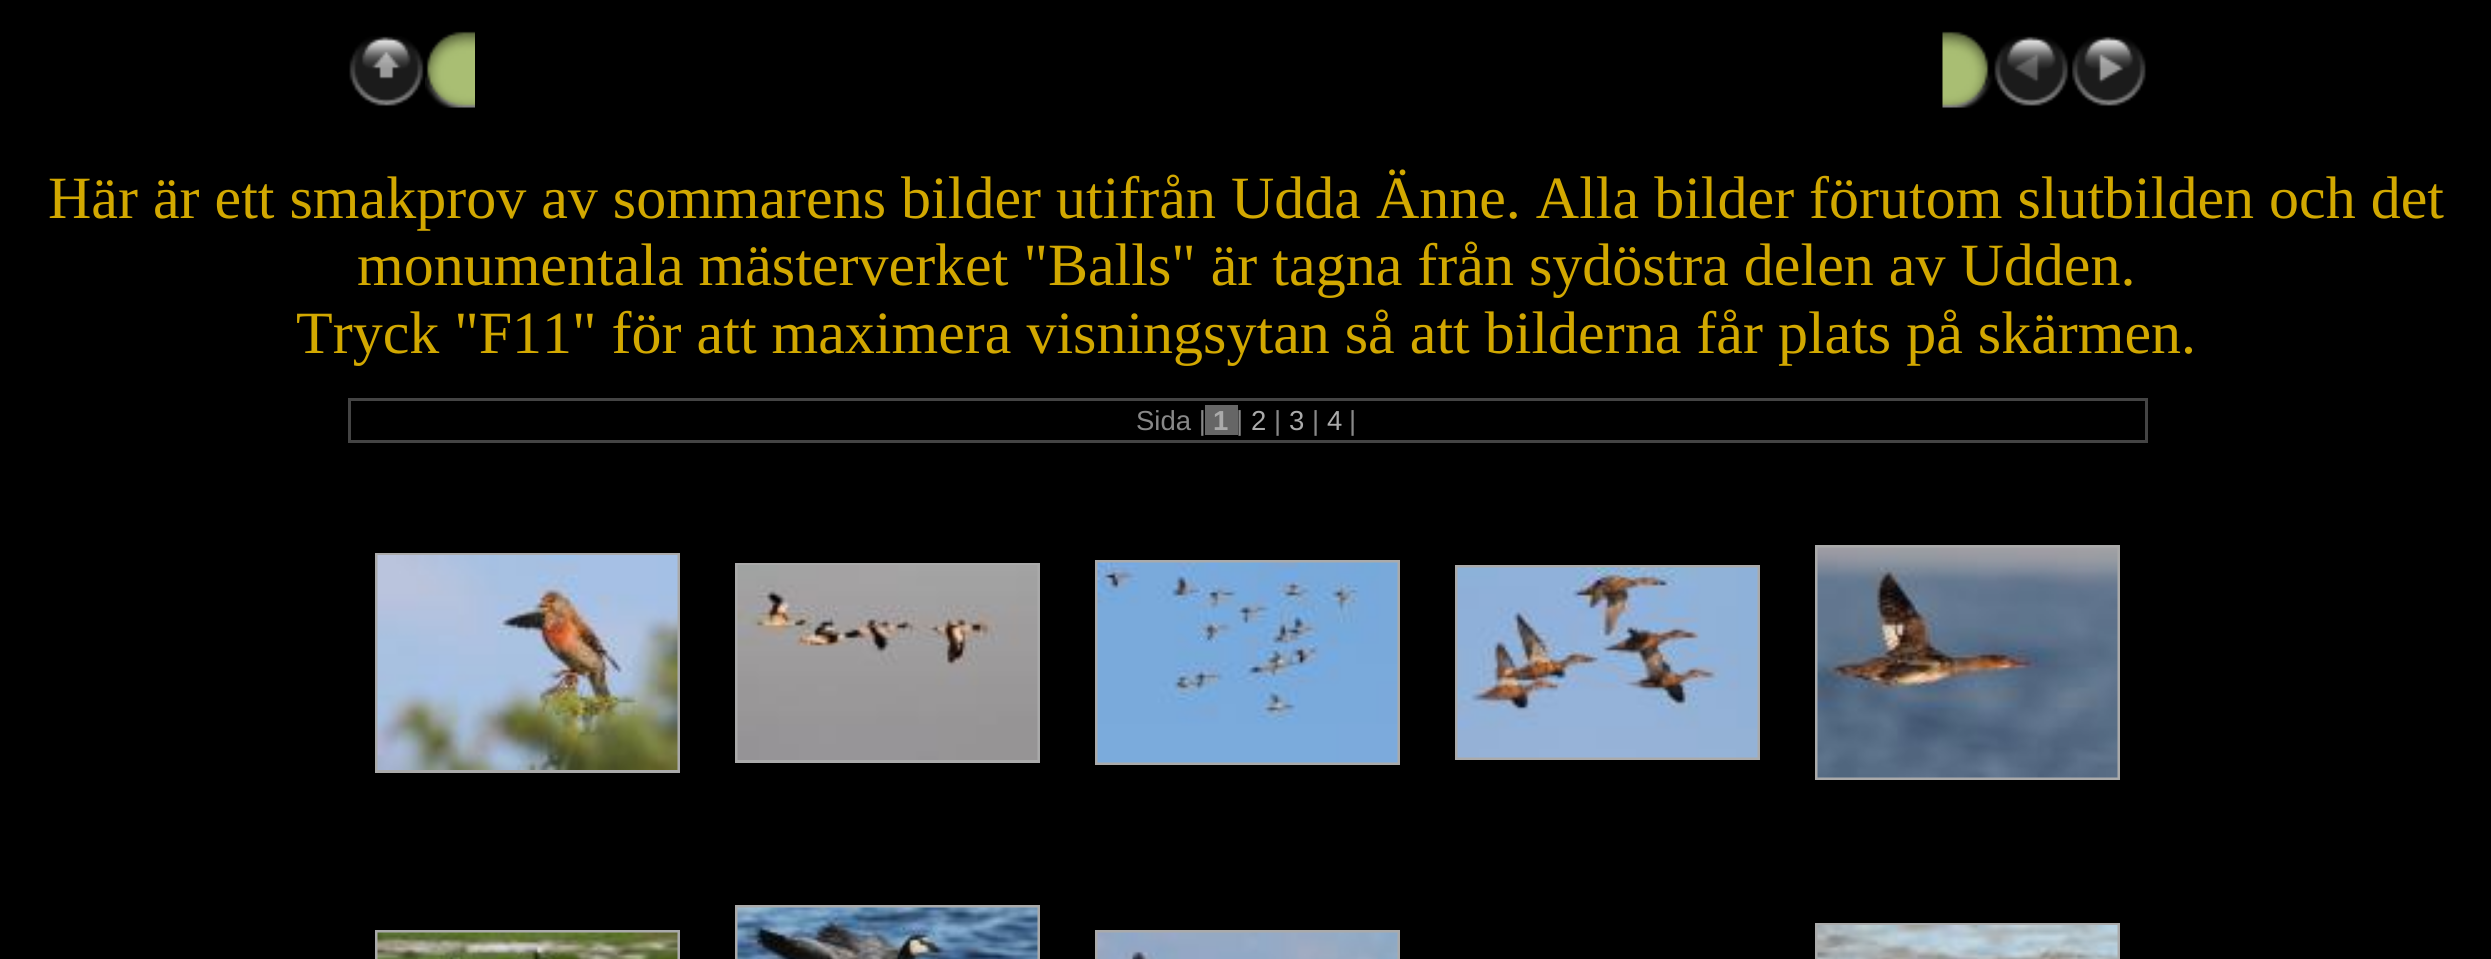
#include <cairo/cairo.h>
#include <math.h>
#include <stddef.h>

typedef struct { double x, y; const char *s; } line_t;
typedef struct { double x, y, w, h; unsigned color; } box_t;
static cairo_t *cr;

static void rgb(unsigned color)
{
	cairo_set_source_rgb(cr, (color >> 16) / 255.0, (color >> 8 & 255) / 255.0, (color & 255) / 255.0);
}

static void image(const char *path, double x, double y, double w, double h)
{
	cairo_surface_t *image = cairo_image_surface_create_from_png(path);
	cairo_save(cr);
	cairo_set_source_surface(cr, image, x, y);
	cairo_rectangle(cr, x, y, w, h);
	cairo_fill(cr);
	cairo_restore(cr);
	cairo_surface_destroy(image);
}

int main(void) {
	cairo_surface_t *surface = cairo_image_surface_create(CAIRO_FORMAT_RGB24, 2491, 959);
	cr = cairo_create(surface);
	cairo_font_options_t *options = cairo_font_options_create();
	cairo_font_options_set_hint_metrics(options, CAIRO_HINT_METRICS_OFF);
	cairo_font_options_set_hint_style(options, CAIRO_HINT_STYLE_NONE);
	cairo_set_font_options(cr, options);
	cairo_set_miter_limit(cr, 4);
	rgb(0x000000);
	cairo_paint(cr);
	image("img/1.png", 349, 36, 75, 70);
	image("img/2.png", 425, 31, 50, 77);
	image("img/3.png", 1942, 31, 51, 77);
	image("img/4.png", 1994, 36, 75, 70);
	image("img/5.png", 2072, 36, 74, 70);
	{
		static const box_t items[] = {
			{348, 398, 1800, 3, 0x444444},
			{2145, 398, 3, 45, 0x444444},
			{348, 440, 1800, 3, 0x444444},
			{348, 398, 3, 45, 0x444444},
			{1205, 405, 33, 30, 0x666666},
		};
		for (size_t i = 0; i < sizeof items / sizeof *items; i++) {
			rgb(items[i].color);
			cairo_rectangle(cr, items[i].x, items[i].y, items[i].w, items[i].h);
			cairo_fill(cr);
		}
	}
	cairo_rectangle(cr, 376.5, 554.5, 302, 217);
	rgb(0xaaaaaa);
	cairo_set_line_width(cr, 3);
	cairo_stroke(cr);
	image("img/6.png", 377, 555, 301, 215);
	cairo_rectangle(cr, 736.5, 564.5, 302, 197);
	cairo_stroke(cr);
	image("img/7.png", 737, 565, 301, 195);
	cairo_rectangle(cr, 1096.5, 561.5, 302, 202);
	cairo_stroke(cr);
	image("img/8.png", 1097, 562, 301, 201);
	cairo_rectangle(cr, 1456.5, 566.5, 302, 192);
	cairo_stroke(cr);
	image("img/9.png", 1457, 567, 301, 191);
	cairo_rectangle(cr, 1816.5, 546.5, 302, 232);
	cairo_stroke(cr);
	image("img/10.png", 1817, 547, 301, 231);
	cairo_rectangle(cr, 376.5, 931.5, 302, 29);
	cairo_stroke(cr);
	image("img/11.png", 377, 932, 301, 27);
	cairo_rectangle(cr, 736.5, 906.5, 302, 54);
	cairo_stroke(cr);
	image("img/12.png", 737, 907, 301, 52);
	cairo_rectangle(cr, 1096.5, 931.5, 302, 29);
	cairo_stroke(cr);
	image("img/13.png", 1097, 932, 301, 27);
	cairo_rectangle(cr, 1816.5, 924.5, 302, 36);
	cairo_stroke(cr);
	image("img/14.png", 1817, 925, 301, 34);
	cairo_select_font_face(cr, "Liberation Serif", CAIRO_FONT_SLANT_NORMAL, CAIRO_FONT_WEIGHT_NORMAL);
	cairo_set_font_size(cr, 60);
	rgb(0xd2a800);
	{
		static const line_t items[] = {
			{48, 218, "Här är ett smakprov av sommarens bilder utifrån Udda Änne. Alla bilder förutom slutbilden och det"},
			{357, 285, "monumentala mästerverket \"Balls\" är tagna från sydöstra delen av Udden."},
			{296, 353, "Tryck \"F11\" för att maximera visningsytan så att bilderna får plats på skärmen."},
		};
		for (size_t i = 0; i < sizeof items / sizeof *items; i++) {
			cairo_move_to(cr, items[i].x, items[i].y);
			cairo_show_text(cr, items[i].s);
		}
	}
	cairo_select_font_face(cr, "Liberation Sans", CAIRO_FONT_SLANT_NORMAL, CAIRO_FONT_WEIGHT_NORMAL);
	cairo_set_font_size(cr, 27.5);
	rgb(0x888888);
	cairo_move_to(cr, 1136, 430);
	cairo_show_text(cr, "Sida |");
	cairo_select_font_face(cr, "Liberation Sans", CAIRO_FONT_SLANT_NORMAL, CAIRO_FONT_WEIGHT_BOLD);
	rgb(0xaaaaaa);
	cairo_move_to(cr, 1213, 430);
	cairo_show_text(cr, "1");
	cairo_select_font_face(cr, "Liberation Sans", CAIRO_FONT_SLANT_NORMAL, CAIRO_FONT_WEIGHT_NORMAL);
	rgb(0x888888);
	cairo_move_to(cr, 1236, 430);
	cairo_show_text(cr, "|");
	rgb(0xaaaaaa);
	cairo_move_to(cr, 1251, 430);
	cairo_show_text(cr, "2");
	rgb(0x888888);
	cairo_move_to(cr, 1274, 430);
	cairo_show_text(cr, "|");
	rgb(0xaaaaaa);
	cairo_move_to(cr, 1289, 430);
	cairo_show_text(cr, "3");
	rgb(0x888888);
	cairo_move_to(cr, 1312, 430);
	cairo_show_text(cr, "|");
	rgb(0xaaaaaa);
	cairo_move_to(cr, 1327, 430);
	cairo_show_text(cr, "4");
	rgb(0x888888);
	cairo_move_to(cr, 1349, 430);
	cairo_show_text(cr, "|");
	cairo_surface_write_to_png(surface, "page.png");
	cairo_font_options_destroy(options);
	cairo_destroy(cr);
	cairo_surface_destroy(surface);
	return 0;
}
